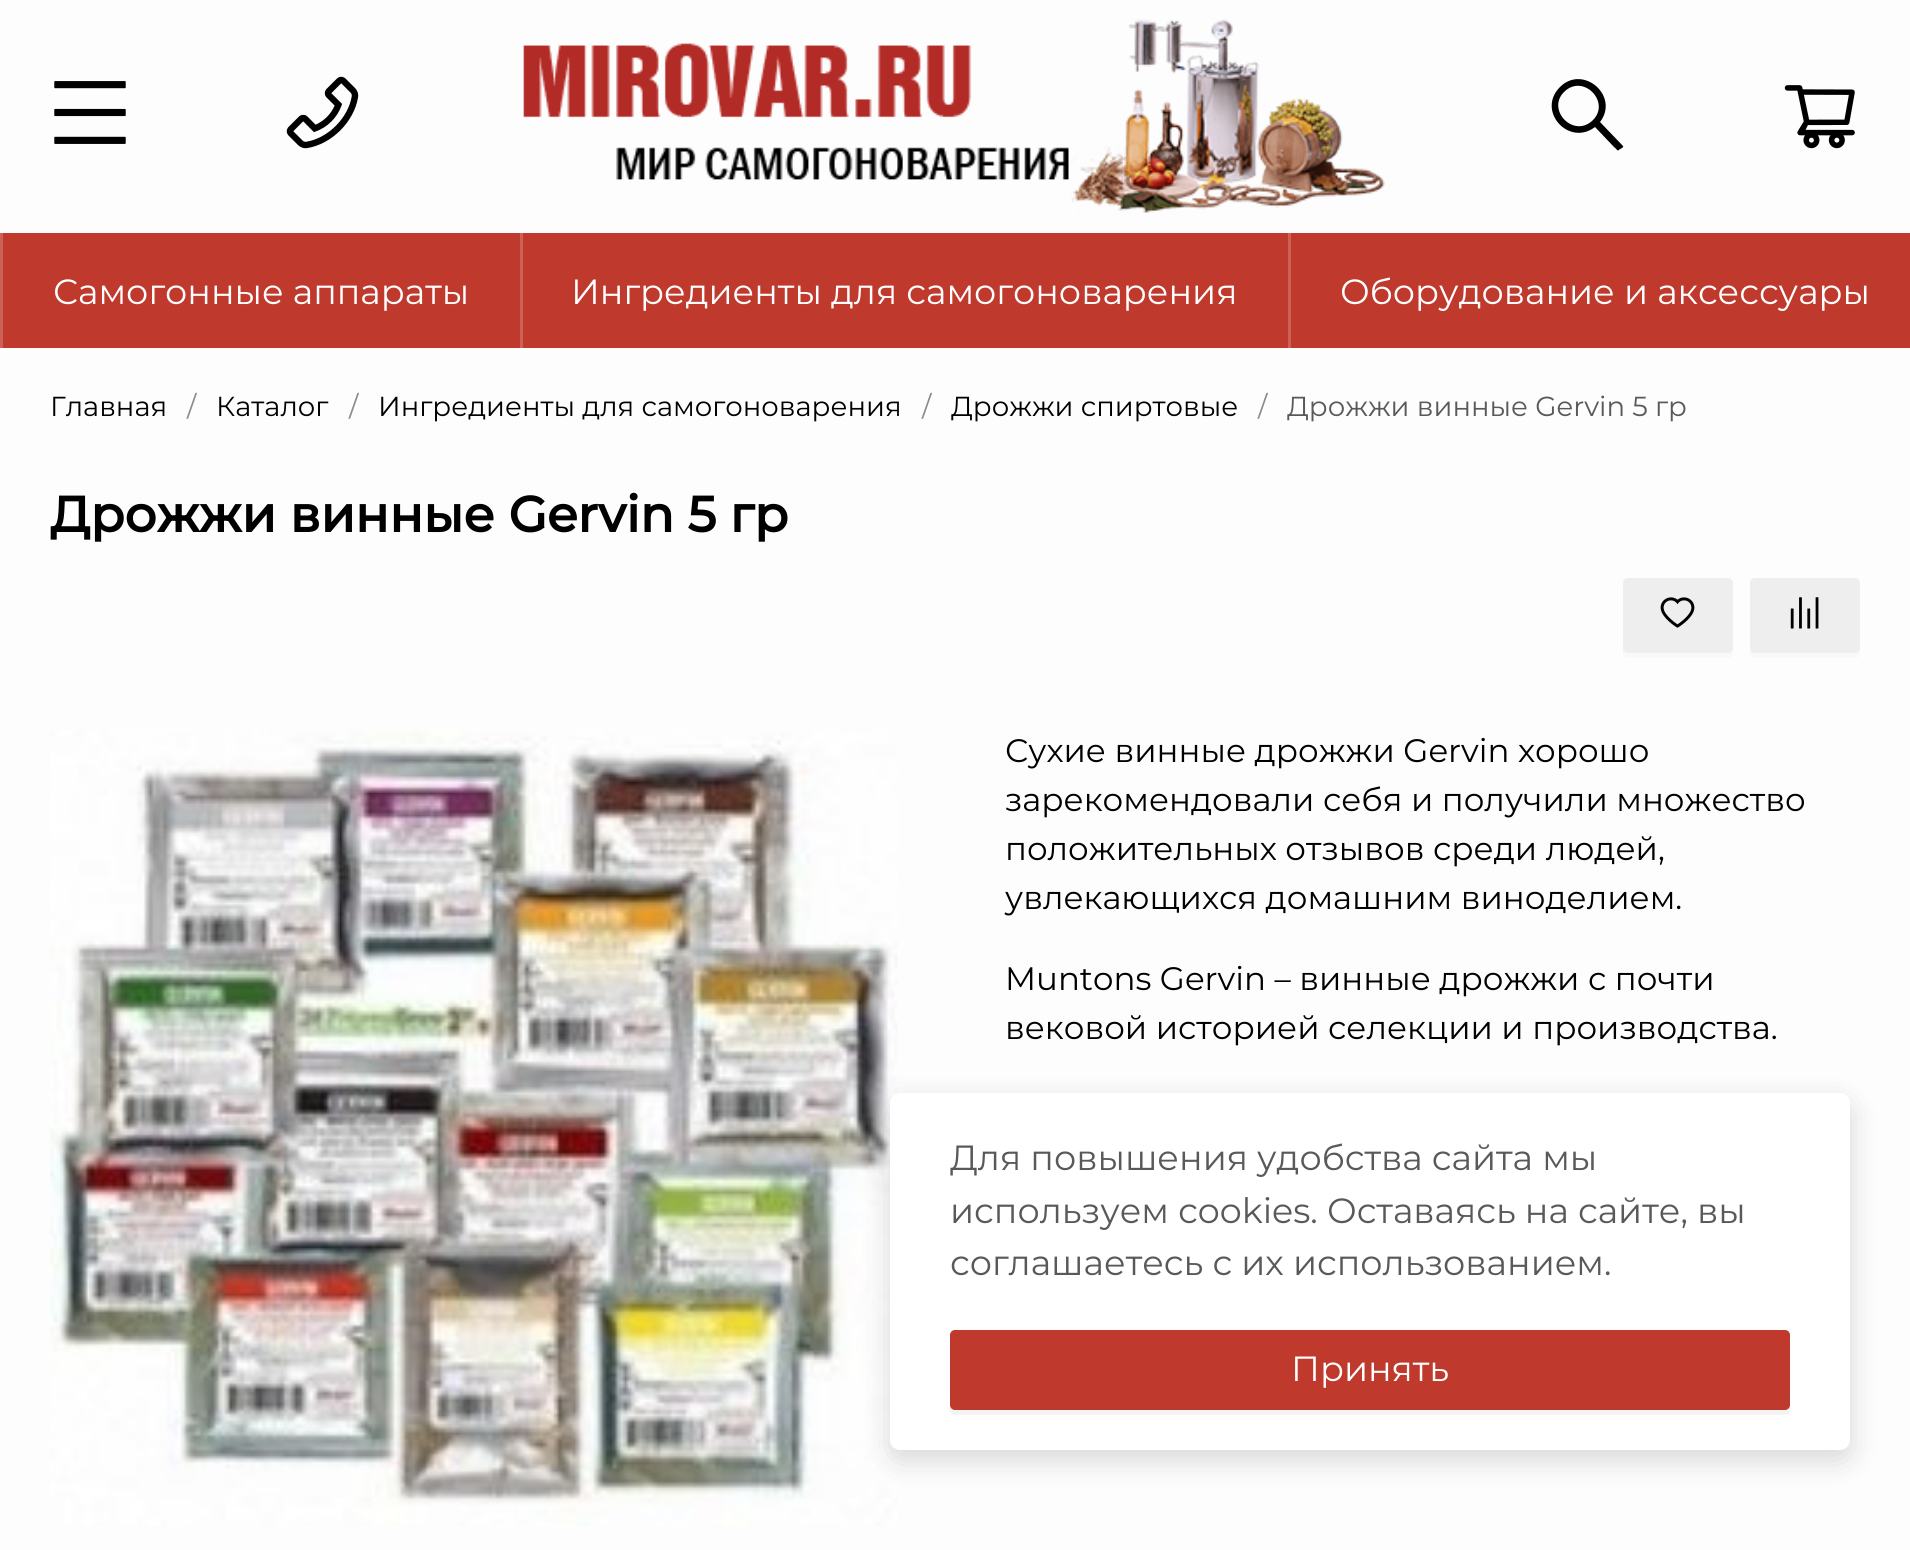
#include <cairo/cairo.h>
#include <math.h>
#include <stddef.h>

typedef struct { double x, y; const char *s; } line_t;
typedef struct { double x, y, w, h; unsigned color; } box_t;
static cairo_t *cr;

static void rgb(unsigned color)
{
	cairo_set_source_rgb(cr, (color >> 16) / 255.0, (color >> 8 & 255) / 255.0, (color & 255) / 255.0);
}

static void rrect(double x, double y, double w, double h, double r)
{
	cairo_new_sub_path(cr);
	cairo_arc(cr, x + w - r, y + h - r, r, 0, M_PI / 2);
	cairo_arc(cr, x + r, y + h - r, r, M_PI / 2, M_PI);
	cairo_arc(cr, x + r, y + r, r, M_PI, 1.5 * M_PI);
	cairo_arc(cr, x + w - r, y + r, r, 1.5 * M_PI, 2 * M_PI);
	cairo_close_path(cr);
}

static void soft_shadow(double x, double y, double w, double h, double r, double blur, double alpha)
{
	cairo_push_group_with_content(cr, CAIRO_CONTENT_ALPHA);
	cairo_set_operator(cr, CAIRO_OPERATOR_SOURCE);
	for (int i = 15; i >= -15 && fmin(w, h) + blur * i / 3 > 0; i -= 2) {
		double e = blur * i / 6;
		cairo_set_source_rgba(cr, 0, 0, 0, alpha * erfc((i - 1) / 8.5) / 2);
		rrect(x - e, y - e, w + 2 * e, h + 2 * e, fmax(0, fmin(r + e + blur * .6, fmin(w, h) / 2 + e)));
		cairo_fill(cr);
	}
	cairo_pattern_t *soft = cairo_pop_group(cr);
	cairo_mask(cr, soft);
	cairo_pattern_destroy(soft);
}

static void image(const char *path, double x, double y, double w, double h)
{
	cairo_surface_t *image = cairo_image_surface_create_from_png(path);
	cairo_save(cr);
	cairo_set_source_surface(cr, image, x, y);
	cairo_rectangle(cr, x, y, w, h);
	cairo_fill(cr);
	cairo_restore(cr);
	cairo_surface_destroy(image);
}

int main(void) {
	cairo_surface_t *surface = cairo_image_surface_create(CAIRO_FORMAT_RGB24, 1910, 1550);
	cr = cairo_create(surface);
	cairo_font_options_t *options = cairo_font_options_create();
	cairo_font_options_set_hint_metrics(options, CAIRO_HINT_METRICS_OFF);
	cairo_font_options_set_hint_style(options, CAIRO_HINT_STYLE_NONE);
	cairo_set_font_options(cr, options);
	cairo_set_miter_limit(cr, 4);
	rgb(0xfdfdfd);
	cairo_paint(cr);
	image("img/1.png", 54, 81, 72, 63);
	image("img/2.png", 286, 76, 73, 73);
	image("img/3.png", 523, 19, 862, 194);
	rgb(0x000000);
	cairo_new_path(cr);
	cairo_move_to(cr, 1623, 146);
	cairo_line_to(cr, 1600, 122);
	cairo_curve_to(cr, 1620, 96, 1583, 64, 1560, 87);
	cairo_curve_to(cr, 1536, 111, 1569, 147, 1595, 127);
	cairo_line_to(cr, 1614, 147);
	cairo_curve_to(cr, 1618, 150, 1617, 152, 1620, 149);
	cairo_curve_to(cr, 1621, 149, 1624, 147, 1623, 146);
	cairo_close_path(cr);
	cairo_move_to(cr, 1593, 120);
	cairo_curve_to(cr, 1574, 139, 1546, 110, 1564, 92);
	cairo_curve_to(cr, 1583, 73, 1611, 102, 1593, 120);
	cairo_close_path(cr);
	cairo_fill(cr);
	image("img/4.png", 1784, 85, 71, 64);
	{
		static const box_t items[] = {
			{3, 233, 1907, 115, 0xbf392d},
			{0, 233, 3, 115, 0xcc6157},
			{520, 233, 3, 115, 0xcc6157},
			{1288, 233, 3, 115, 0xcc6157},
		};
		for (size_t i = 0; i < sizeof items / sizeof *items; i++) {
			rgb(items[i].color);
			cairo_rectangle(cr, items[i].x, items[i].y, items[i].w, items[i].h);
			cairo_fill(cr);
		}
	}
	rgb(0xf9f9f9);
	cairo_new_path(cr);
	cairo_move_to(cr, 1623, 650);
	cairo_line_to(cr, 1623, 653);
	cairo_curve_to(cr, 1623, 656, 1625, 658, 1628, 658);
	cairo_line_to(cr, 1728, 658);
	cairo_curve_to(cr, 1731, 658, 1733, 656, 1733, 653);
	cairo_line_to(cr, 1733, 588);
	cairo_line_to(cr, 1732, 586);
	cairo_line_to(cr, 1732, 648);
	cairo_curve_to(cr, 1732, 650, 1730, 652, 1728, 652);
	cairo_line_to(cr, 1628, 652);
	cairo_curve_to(cr, 1626, 652, 1624, 651, 1623, 650);
	cairo_close_path(cr);
	cairo_fill(cr);
	rgb(0xeeeeee);
	rrect(1623, 578, 110, 75, 5);
	cairo_fill(cr);
	image("img/5.png", 1660, 597, 35, 31);
	rgb(0xf9f9f9);
	cairo_new_path(cr);
	cairo_move_to(cr, 1750, 648);
	cairo_line_to(cr, 1750, 653);
	cairo_curve_to(cr, 1750, 656, 1752, 658, 1755, 658);
	cairo_line_to(cr, 1855, 658);
	cairo_curve_to(cr, 1858, 658, 1860, 656, 1860, 653);
	cairo_line_to(cr, 1860, 648);
	cairo_curve_to(cr, 1860, 650, 1858, 652, 1855, 652);
	cairo_line_to(cr, 1755, 652);
	cairo_curve_to(cr, 1752, 652, 1750, 650, 1750, 648);
	cairo_close_path(cr);
	cairo_fill(cr);
	rgb(0xeeeeee);
	rrect(1750, 578, 110, 75, 5);
	cairo_fill(cr);
	image("img/6.png", 1790, 597, 29, 32);
	image("img/7.png", 50, 730, 848, 796);
	rgb(0x000000);
	soft_shadow(890, 1103, 960, 357, 10, 15, 0.15);
	rgb(0xffffff);
	rrect(890, 1093, 960, 357, 10);
	cairo_fill(cr);
	rgb(0xf4f4f4);
	cairo_new_path(cr);
	cairo_move_to(cr, 950, 1405);
	cairo_line_to(cr, 950, 1410);
	cairo_curve_to(cr, 950, 1413, 952, 1415, 955, 1415);
	cairo_line_to(cr, 1785, 1415);
	cairo_curve_to(cr, 1788, 1415, 1790, 1413, 1790, 1410);
	cairo_line_to(cr, 1790, 1405);
	cairo_curve_to(cr, 1790, 1408, 1788, 1410, 1785, 1410);
	cairo_line_to(cr, 955, 1410);
	cairo_curve_to(cr, 952, 1410, 950, 1408, 950, 1405);
	cairo_close_path(cr);
	cairo_fill(cr);
	rgb(0xbf392d);
	rrect(950, 1330, 840, 80, 5);
	cairo_fill(cr);
	cairo_select_font_face(cr, "Montserrat", CAIRO_FONT_SLANT_NORMAL, CAIRO_FONT_WEIGHT_NORMAL);
	cairo_set_font_size(cr, 35);
	rgb(0xffffff);
	{
		static const line_t items[] = {
			{53, 304, "Самогонные аппараты"},
			{571, 304, "Ингредиенты для самогоноварения"},
			{1340, 304, "Оборудование и аксессуары"},
		};
		for (size_t i = 0; i < sizeof items / sizeof *items; i++) {
			cairo_move_to(cr, items[i].x, items[i].y);
			cairo_show_text(cr, items[i].s);
		}
	}
	cairo_set_font_size(cr, 27.5);
	rgb(0x000000);
	cairo_move_to(cr, 50, 416);
	cairo_show_text(cr, "Главная");
	rgb(0x8b8b8b);
	cairo_move_to(cr, 187, 416);
	cairo_show_text(cr, "/");
	rgb(0x000000);
	cairo_move_to(cr, 216, 416);
	cairo_show_text(cr, "Каталог");
	rgb(0x8b8b8b);
	cairo_move_to(cr, 349, 416);
	cairo_show_text(cr, "/");
	rgb(0x000000);
	cairo_move_to(cr, 378, 416);
	cairo_show_text(cr, "Ингредиенты для самогоноварения");
	rgb(0x8b8b8b);
	cairo_move_to(cr, 922, 416);
	cairo_show_text(cr, "/");
	rgb(0x000000);
	cairo_move_to(cr, 951, 416);
	cairo_show_text(cr, "Дрожжи спиртовые");
	rgb(0x8b8b8b);
	cairo_move_to(cr, 1258, 416);
	cairo_show_text(cr, "/");
	rgb(0x595959);
	cairo_move_to(cr, 1287, 416);
	cairo_show_text(cr, "Дрожжи винные Gervin 5 гр");
	cairo_select_font_face(cr, "Montserrat", CAIRO_FONT_SLANT_NORMAL, CAIRO_FONT_WEIGHT_BOLD);
	cairo_set_font_size(cr, 50);
	rgb(0x000000);
	cairo_move_to(cr, 50, 532);
	cairo_show_text(cr, "Дрожжи винные Gervin 5 гр");
	cairo_select_font_face(cr, "Montserrat", CAIRO_FONT_SLANT_NORMAL, CAIRO_FONT_WEIGHT_NORMAL);
	cairo_set_font_size(cr, 32.5);
	{
		static const line_t items[] = {
			{1005, 762, "Сухие винные дрожжи Gervin хорошо"},
			{1005, 811, "зарекомендовали себя и получили множество"},
			{1005, 860, "положительных отзывов среди людей,"},
			{1005, 909, "увлекающихся домашним виноделием."},
			{1005, 990, "Muntons Gervin – винные дрожжи с почти"},
			{1005, 1039, "вековой историей селекции и производства."},
		};
		for (size_t i = 0; i < sizeof items / sizeof *items; i++) {
			cairo_move_to(cr, items[i].x, items[i].y);
			cairo_show_text(cr, items[i].s);
		}
	}
	cairo_set_font_size(cr, 35);
	rgb(0x595959);
	{
		static const line_t items[] = {
			{950, 1170, "Для повышения удобства сайта мы"},
			{950, 1223, "используем cookies. Оставаясь на сайте, вы"},
			{950, 1275, "соглашаетесь с их использованием."},
		};
		for (size_t i = 0; i < sizeof items / sizeof *items; i++) {
			cairo_move_to(cr, items[i].x, items[i].y);
			cairo_show_text(cr, items[i].s);
		}
	}
	rgb(0xffffff);
	cairo_move_to(cr, 1291, 1381);
	cairo_show_text(cr, "Принять");
	cairo_surface_write_to_png(surface, "page.png");
	cairo_font_options_destroy(options);
	cairo_destroy(cr);
	cairo_surface_destroy(surface);
	return 0;
}
